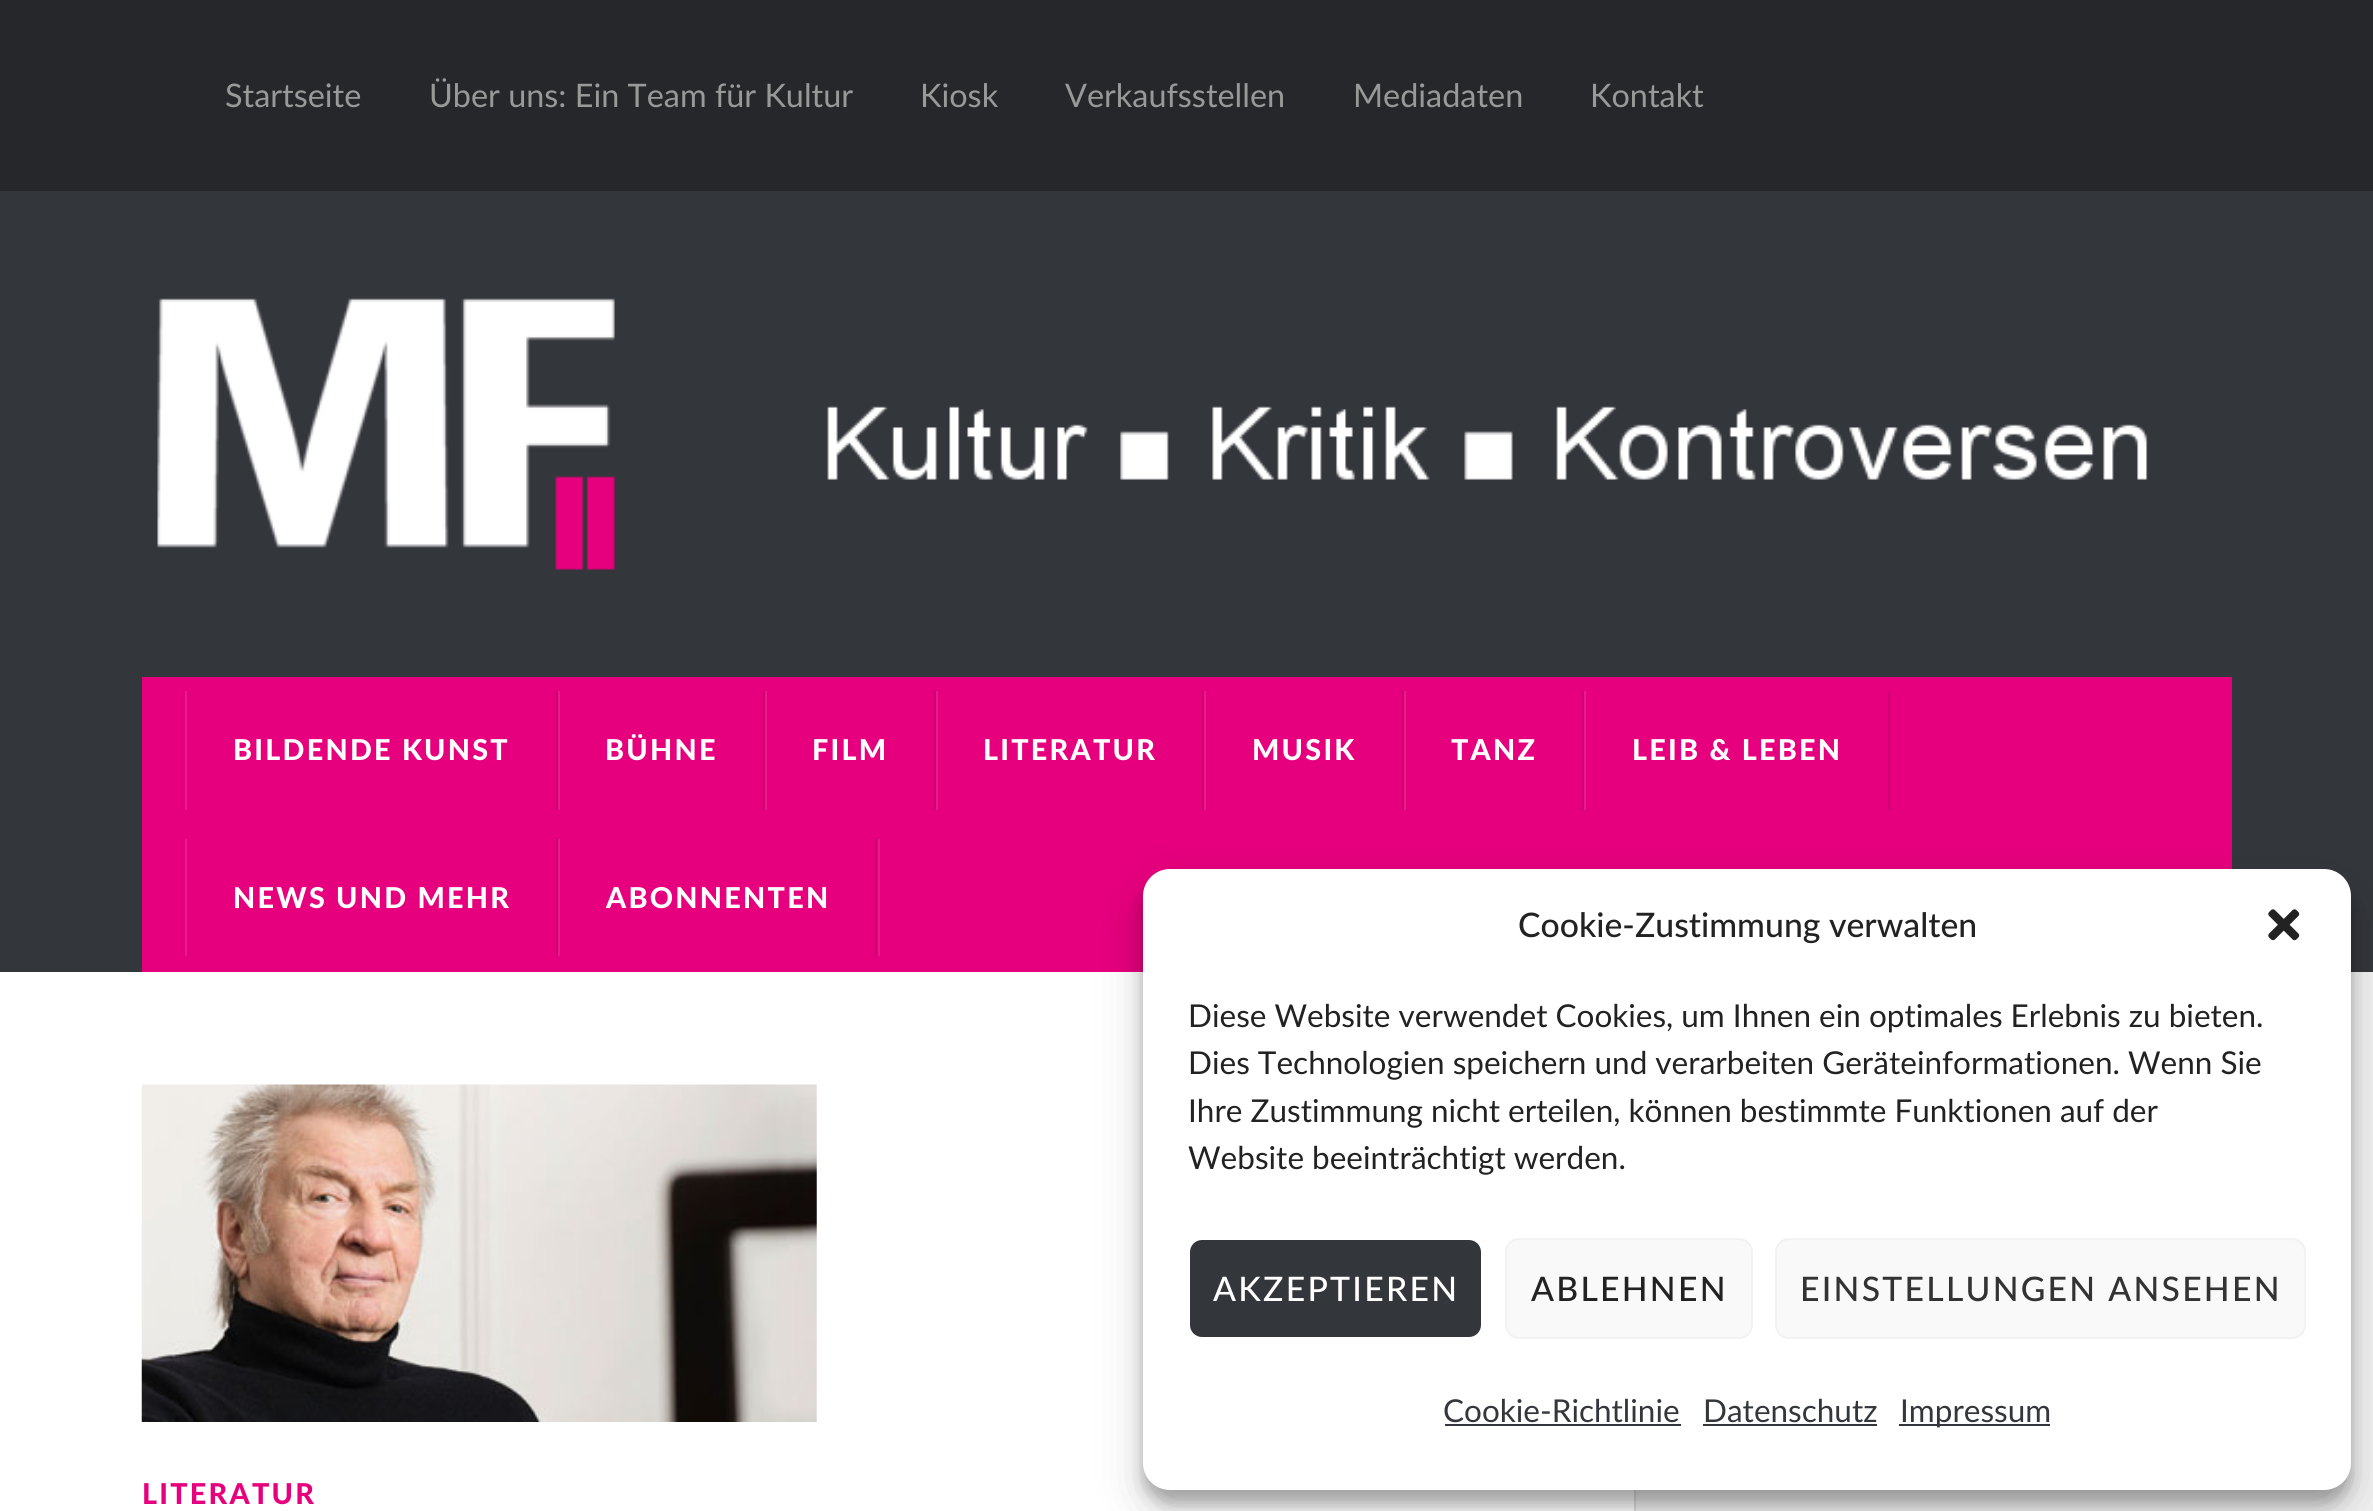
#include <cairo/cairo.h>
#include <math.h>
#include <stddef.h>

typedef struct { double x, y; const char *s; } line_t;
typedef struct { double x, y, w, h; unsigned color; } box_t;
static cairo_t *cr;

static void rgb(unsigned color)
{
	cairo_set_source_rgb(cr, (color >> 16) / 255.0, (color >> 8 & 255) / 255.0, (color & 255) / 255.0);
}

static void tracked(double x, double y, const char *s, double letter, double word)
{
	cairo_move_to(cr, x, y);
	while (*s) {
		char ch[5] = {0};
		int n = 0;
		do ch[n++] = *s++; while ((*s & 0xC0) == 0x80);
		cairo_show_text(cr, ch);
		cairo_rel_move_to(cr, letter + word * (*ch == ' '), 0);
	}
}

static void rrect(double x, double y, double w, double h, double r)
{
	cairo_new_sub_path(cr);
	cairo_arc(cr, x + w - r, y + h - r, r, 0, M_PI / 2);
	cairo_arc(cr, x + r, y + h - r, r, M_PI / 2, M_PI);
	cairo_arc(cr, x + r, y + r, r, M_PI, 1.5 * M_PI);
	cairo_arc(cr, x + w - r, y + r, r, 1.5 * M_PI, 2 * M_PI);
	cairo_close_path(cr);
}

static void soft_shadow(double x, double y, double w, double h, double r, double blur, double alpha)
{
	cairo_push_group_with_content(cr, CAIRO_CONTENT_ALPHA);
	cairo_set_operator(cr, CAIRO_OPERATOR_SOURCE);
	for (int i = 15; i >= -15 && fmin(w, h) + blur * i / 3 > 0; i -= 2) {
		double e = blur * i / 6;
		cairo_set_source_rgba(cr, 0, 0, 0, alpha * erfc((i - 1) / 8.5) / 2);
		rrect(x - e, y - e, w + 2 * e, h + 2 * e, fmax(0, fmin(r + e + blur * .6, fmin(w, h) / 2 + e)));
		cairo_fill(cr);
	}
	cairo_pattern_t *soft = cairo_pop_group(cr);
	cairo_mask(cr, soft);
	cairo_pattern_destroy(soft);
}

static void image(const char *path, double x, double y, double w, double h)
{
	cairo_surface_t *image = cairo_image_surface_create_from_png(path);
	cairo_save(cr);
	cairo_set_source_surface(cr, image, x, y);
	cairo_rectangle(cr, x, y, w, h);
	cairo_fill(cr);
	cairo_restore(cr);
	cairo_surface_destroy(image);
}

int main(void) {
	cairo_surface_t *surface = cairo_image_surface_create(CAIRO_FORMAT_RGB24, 2373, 1511);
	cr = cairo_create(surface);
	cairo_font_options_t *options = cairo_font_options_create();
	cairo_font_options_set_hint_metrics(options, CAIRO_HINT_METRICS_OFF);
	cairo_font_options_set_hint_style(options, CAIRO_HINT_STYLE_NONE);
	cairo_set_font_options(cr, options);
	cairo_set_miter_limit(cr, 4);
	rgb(0xf1f1f1);
	cairo_paint(cr);
	rgb(0x26272b);
	cairo_rectangle(cr, 0, 0, 2373, 191);
	cairo_fill(cr);
	rgb(0x33363b);
	cairo_rectangle(cr, 0, 191, 2373, 781);
	cairo_fill(cr);
	image("img/1.png", 157, 298, 1991, 272);
	{
		static const box_t items[] = {
			{142, 677, 2090, 295, 0xe6007d},
			{556, 691, 2, 119, 0xcf0071},
			{185, 691, 2, 119, 0xe91a8a},
			{763, 691, 2, 119, 0xcf0071},
			{558, 691, 2, 119, 0xe91a8a},
			{934, 691, 2, 119, 0xcf0071},
			{765, 691, 2, 119, 0xe91a8a},
			{1202, 691, 2, 119, 0xcf0071},
			{936, 691, 2, 119, 0xe91a8a},
			{1402, 691, 2, 119, 0xcf0071},
			{1204, 691, 2, 119, 0xe91a8a},
			{1582, 691, 2, 119, 0xcf0071},
			{1404, 691, 2, 119, 0xe91a8a},
			{1888, 691, 2, 119, 0xcf0071},
			{1584, 691, 2, 119, 0xe91a8a},
			{556, 839, 2, 117, 0xcf0071},
			{185, 839, 2, 117, 0xe91a8a},
			{875, 839, 2, 117, 0xcf0071},
			{558, 839, 2, 117, 0xe91a8a},
			{878, 839, 2, 117, 0xe91a8a},
			{0, 972, 1634, 539, 0xffffff},
			{1634, 1490, 2, 21, 0xdddddd},
		};
		for (size_t i = 0; i < sizeof items / sizeof *items; i++) {
			rgb(items[i].color);
			cairo_rectangle(cr, items[i].x, items[i].y, items[i].w, items[i].h);
			cairo_fill(cr);
		}
	}
	rgb(0x000000);
	soft_shadow(1143, 882, 1208, 621, 27, 7, 0.23);
	soft_shadow(1143, 891, 1208, 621, 27, 22.5, 0.19);
	rgb(0xffffff);
	rrect(1143, 869, 1208, 621, 27);
	cairo_fill(cr);
	image("img/2.png", 2268, 909, 32, 32);
	rgb(0x33363b);
	rrect(1189, 1239, 293, 99, 13);
	cairo_fill_preserve(cr);
	rgb(0xffffff);
	cairo_stroke(cr);
	rgb(0xf9f9f9);
	rrect(1506, 1239, 246, 99, 13);
	cairo_fill_preserve(cr);
	rgb(0xf2f2f2);
	cairo_stroke(cr);
	rgb(0xf9f9f9);
	rrect(1776, 1239, 529, 99, 13);
	cairo_fill_preserve(cr);
	rgb(0xf2f2f2);
	cairo_stroke(cr);
	{
		static const box_t items[] = {
			{1445, 1424, 236, 2, 0x33363b},
			{1703, 1424, 174, 2, 0x33363b},
			{1899, 1424, 151, 2, 0x33363b},
		};
		for (size_t i = 0; i < sizeof items / sizeof *items; i++) {
			rgb(items[i].color);
			cairo_rectangle(cr, items[i].x, items[i].y, items[i].w, items[i].h);
			cairo_fill(cr);
		}
	}
	image("img/3.png", 141, 1084, 676, 338);
	cairo_select_font_face(cr, "Lato", CAIRO_FONT_SLANT_NORMAL, CAIRO_FONT_WEIGHT_NORMAL);
	cairo_set_font_size(cr, 32.4);
	rgb(0x999999);
	{
		static const line_t items[] = {
			{225, 107, "Startseite"},
			{429, 107, "Über uns: Ein Team für Kultur"},
			{920, 107, "Kiosk"},
			{1065, 107, "Verkaufsstellen"},
			{1353, 107, "Mediadaten"},
			{1590, 107, "Kontakt"},
		};
		for (size_t i = 0; i < sizeof items / sizeof *items; i++) {
			cairo_move_to(cr, items[i].x, items[i].y);
			cairo_show_text(cr, items[i].s);
		}
	}
	cairo_select_font_face(cr, "Lato Black", CAIRO_FONT_SLANT_NORMAL, CAIRO_FONT_WEIGHT_NORMAL);
	cairo_set_font_size(cr, 28.75);
	rgb(0xffffff);
	{
		static const line_t items[] = {
			{233, 760, "BILDENDE KUNST"},
			{605, 760, "BÜHNE"},
			{812, 760, "FILM"},
			{983, 760, "LITERATUR"},
			{1252, 760, "MUSIK"},
			{1451, 760, "TANZ"},
			{1632, 760, "LEIB & LEBEN"},
			{233, 908, "NEWS UND MEHR"},
			{606, 908, "ABONNENTEN"},
		};
		for (size_t i = 0; i < sizeof items / sizeof *items; i++) {
			tracked(items[i].x, items[i].y, items[i].s, 2.25, 0);
		}
	}
	cairo_select_font_face(cr, "Lato Medium", CAIRO_FONT_SLANT_NORMAL, CAIRO_FONT_WEIGHT_NORMAL);
	cairo_set_font_size(cr, 33.75);
	rgb(0x222222);
	cairo_move_to(cr, 1518, 937);
	cairo_show_text(cr, "Cookie-Zustimmung verwalten");
	cairo_select_font_face(cr, "Lato", CAIRO_FONT_SLANT_NORMAL, CAIRO_FONT_WEIGHT_NORMAL);
	cairo_set_font_size(cr, 31.5);
	{
		static const line_t items[] = {
			{1188, 1027, "Diese Website verwendet Cookies, um Ihnen ein optimales Erlebnis zu bieten."},
			{1188, 1074, "Dies Technologien speichern und verarbeiten Geräteinformationen. Wenn Sie"},
			{1188, 1122, "Ihre Zustimmung nicht erteilen, können bestimmte Funktionen auf der"},
			{1188, 1169, "Website beeinträchtigt werden."},
		};
		for (size_t i = 0; i < sizeof items / sizeof *items; i++) {
			cairo_move_to(cr, items[i].x, items[i].y);
			cairo_show_text(cr, items[i].s);
		}
	}
	cairo_select_font_face(cr, "Lato Medium", CAIRO_FONT_SLANT_NORMAL, CAIRO_FONT_WEIGHT_NORMAL);
	cairo_set_font_size(cr, 33.75);
	rgb(0xffffff);
	tracked(1213, 1301, "AKZEPTIEREN", 2.25, 0);
	rgb(0x222222);
	tracked(1531, 1301, "ABLEHNEN", 2.25, 0);
	rgb(0x333333);
	tracked(1800, 1301, "EINSTELLUNGEN ANSEHEN", 2.25, 0);
	cairo_select_font_face(cr, "Lato", CAIRO_FONT_SLANT_NORMAL, CAIRO_FONT_WEIGHT_NORMAL);
	cairo_set_font_size(cr, 31.5);
	rgb(0x33363b);
	{
		static const line_t items[] = {
			{1443, 1422, "Cookie-Richtlinie"},
			{1703, 1422, "Datenschutz"},
			{1900, 1422, "Impressum"},
		};
		for (size_t i = 0; i < sizeof items / sizeof *items; i++) {
			cairo_move_to(cr, items[i].x, items[i].y);
			cairo_show_text(cr, items[i].s);
		}
	}
	cairo_select_font_face(cr, "Lato Black", CAIRO_FONT_SLANT_NORMAL, CAIRO_FONT_WEIGHT_NORMAL);
	cairo_set_font_size(cr, 28.75);
	rgb(0xe6007d);
	tracked(142, 1504, "LITERATUR", 2.25, 0);
	cairo_surface_write_to_png(surface, "page.png");
	cairo_font_options_destroy(options);
	cairo_destroy(cr);
	cairo_surface_destroy(surface);
	return 0;
}
